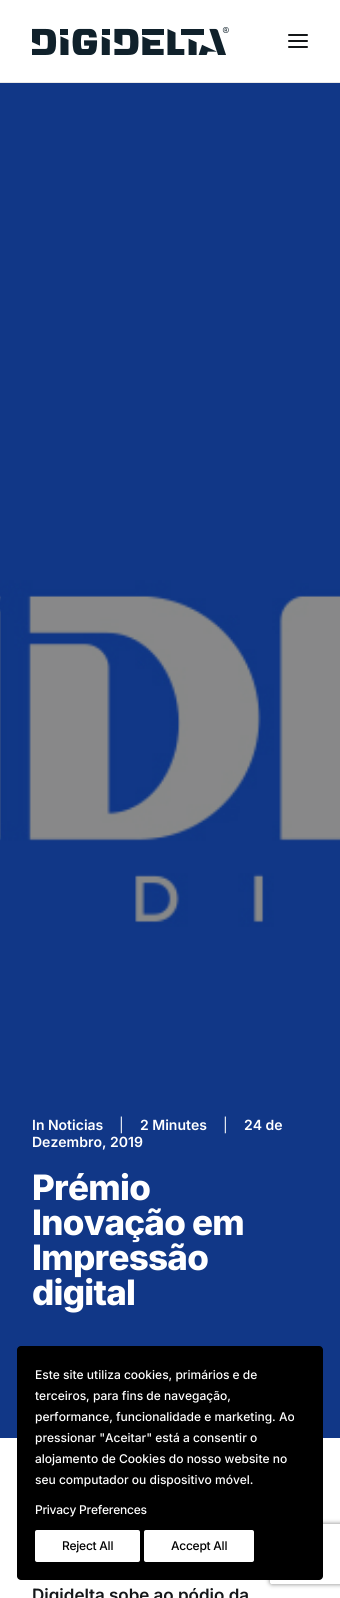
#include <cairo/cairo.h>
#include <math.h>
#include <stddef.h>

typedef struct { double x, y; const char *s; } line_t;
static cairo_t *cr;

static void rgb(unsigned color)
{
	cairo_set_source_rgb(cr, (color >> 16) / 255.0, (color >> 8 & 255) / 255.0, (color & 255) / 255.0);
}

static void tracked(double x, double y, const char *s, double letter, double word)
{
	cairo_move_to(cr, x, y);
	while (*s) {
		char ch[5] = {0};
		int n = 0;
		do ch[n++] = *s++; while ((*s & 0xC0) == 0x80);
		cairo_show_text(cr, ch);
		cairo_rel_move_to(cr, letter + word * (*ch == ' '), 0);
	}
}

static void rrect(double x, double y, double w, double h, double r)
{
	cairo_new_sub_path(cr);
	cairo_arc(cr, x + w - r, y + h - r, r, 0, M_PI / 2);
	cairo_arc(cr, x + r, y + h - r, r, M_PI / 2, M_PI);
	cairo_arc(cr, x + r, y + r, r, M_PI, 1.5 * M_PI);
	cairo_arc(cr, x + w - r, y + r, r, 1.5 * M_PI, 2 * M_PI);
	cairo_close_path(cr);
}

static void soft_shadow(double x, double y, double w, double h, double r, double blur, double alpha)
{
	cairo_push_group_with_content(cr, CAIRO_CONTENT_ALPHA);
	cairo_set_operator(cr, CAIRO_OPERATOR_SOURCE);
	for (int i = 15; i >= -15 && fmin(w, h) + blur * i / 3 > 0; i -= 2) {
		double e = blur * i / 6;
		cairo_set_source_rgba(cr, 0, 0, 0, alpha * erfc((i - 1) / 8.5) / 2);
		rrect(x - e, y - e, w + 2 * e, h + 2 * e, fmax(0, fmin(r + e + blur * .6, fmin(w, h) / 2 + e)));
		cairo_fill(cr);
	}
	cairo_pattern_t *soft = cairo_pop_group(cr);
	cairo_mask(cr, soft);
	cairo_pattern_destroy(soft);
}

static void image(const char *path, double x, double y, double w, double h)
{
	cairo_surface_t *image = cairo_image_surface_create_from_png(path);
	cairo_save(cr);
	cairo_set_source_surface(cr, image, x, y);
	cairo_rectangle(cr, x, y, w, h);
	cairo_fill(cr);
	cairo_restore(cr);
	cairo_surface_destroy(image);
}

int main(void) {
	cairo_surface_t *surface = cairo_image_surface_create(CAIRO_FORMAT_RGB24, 340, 1598);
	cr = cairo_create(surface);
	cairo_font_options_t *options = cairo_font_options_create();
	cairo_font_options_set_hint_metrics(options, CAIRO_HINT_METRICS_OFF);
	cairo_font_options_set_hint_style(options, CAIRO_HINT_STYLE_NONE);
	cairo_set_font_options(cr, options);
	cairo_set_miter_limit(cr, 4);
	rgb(0xffffff);
	cairo_paint(cr);
	rgb(0xe8e8e8);
	cairo_rectangle(cr, 0, 82, 340, 1);
	cairo_fill(cr);
	image("img/1.png", 32, 27, 197, 28);
	rgb(0x141618);
	rrect(288, 40, 20, 2, 1);
	cairo_fill(cr);
	rrect(288, 34, 20, 2, 1);
	cairo_fill(cr);
	rrect(288, 46, 20, 2, 1);
	cairo_fill(cr);
	image("img/2.png", 0, 83, 340, 1355);
	cairo_save(cr);
	cairo_set_fill_rule(cr, CAIRO_FILL_RULE_EVEN_ODD);
	cairo_new_path(cr);
	cairo_move_to(cr, 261, 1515);
	cairo_line_to(cr, 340, 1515);
	cairo_line_to(cr, 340, 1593);
	cairo_line_to(cr, 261, 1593);
	cairo_close_path(cr);
	cairo_move_to(cr, 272, 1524);
	cairo_line_to(cr, 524, 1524);
	cairo_curve_to(cr, 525, 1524, 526, 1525, 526, 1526);
	cairo_line_to(cr, 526, 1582);
	cairo_curve_to(cr, 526, 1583, 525, 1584, 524, 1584);
	cairo_line_to(cr, 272, 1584);
	cairo_curve_to(cr, 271, 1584, 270, 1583, 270, 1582);
	cairo_line_to(cr, 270, 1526);
	cairo_curve_to(cr, 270, 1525, 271, 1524, 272, 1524);
	cairo_close_path(cr);
	cairo_clip(cr);
	rgb(0x808080);
	soft_shadow(270, 1524, 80, 60, 2, 2.5, 1);
	cairo_restore(cr);
	rgb(0x000000);
	rrect(17, 1346, 306, 234, 4);
	cairo_fill(cr);
	rgb(0xffffff);
	rrect(35, 1530, 105, 32, 2);
	cairo_fill(cr);
	rrect(144, 1530, 110, 32, 2);
	cairo_fill(cr);
	cairo_select_font_face(cr, "Inter SemiBold", CAIRO_FONT_SLANT_NORMAL, CAIRO_FONT_WEIGHT_NORMAL);
	cairo_set_font_size(cr, 14);
	cairo_move_to(cr, 32, 1130);
	cairo_show_text(cr, "In Noticias");
	cairo_select_font_face(cr, "Inter", CAIRO_FONT_SLANT_NORMAL, CAIRO_FONT_WEIGHT_NORMAL);
	cairo_move_to(cr, 119, 1130);
	cairo_show_text(cr, "|");
	cairo_select_font_face(cr, "Inter SemiBold", CAIRO_FONT_SLANT_NORMAL, CAIRO_FONT_WEIGHT_NORMAL);
	cairo_move_to(cr, 140, 1130);
	cairo_show_text(cr, "2 Minutes");
	cairo_select_font_face(cr, "Inter", CAIRO_FONT_SLANT_NORMAL, CAIRO_FONT_WEIGHT_NORMAL);
	cairo_move_to(cr, 223, 1130);
	cairo_show_text(cr, "|");
	cairo_select_font_face(cr, "Inter SemiBold", CAIRO_FONT_SLANT_NORMAL, CAIRO_FONT_WEIGHT_NORMAL);
	cairo_move_to(cr, 244, 1130);
	cairo_show_text(cr, "24 de");
	cairo_move_to(cr, 32, 1147);
	cairo_show_text(cr, "Dezembro, 2019");
	cairo_select_font_face(cr, "Inter ExtraBold", CAIRO_FONT_SLANT_NORMAL, CAIRO_FONT_WEIGHT_NORMAL);
	cairo_set_font_size(cr, 35);
	{
		static const line_t items[] = {
			{32, 1200, "Prémio"},
			{32, 1235, "Inovação em"},
			{32, 1270, "Impressão"},
			{32, 1305, "digital"},
		};
		for (size_t i = 0; i < sizeof items / sizeof *items; i++) {
			tracked(items[i].x, items[i].y, items[i].s, -0.75, 0);
		}
	}
	cairo_select_font_face(cr, "Inter SemiBold", CAIRO_FONT_SLANT_NORMAL, CAIRO_FONT_WEIGHT_NORMAL);
	cairo_set_font_size(cr, 17);
	rgb(0x141618);
	cairo_move_to(cr, 32, 1601);
	cairo_show_text(cr, "Digidelta sobe ao pódio da");
	cairo_select_font_face(cr, "Inter Medium", CAIRO_FONT_SLANT_NORMAL, CAIRO_FONT_WEIGHT_NORMAL);
	cairo_set_font_size(cr, 12);
	rgb(0xffffff);
	{
		static const line_t items[] = {
			{35, 1379, "Este site utiliza cookies, primários e de"},
			{35, 1400, "terceiros, para fins de navegação,"},
			{35, 1421, "performance, funcionalidade e marketing. Ao"},
			{35, 1442, "pressionar \"Aceitar\" está a consentir o"},
			{35, 1463, "alojamento de Cookies do nosso website no"},
			{35, 1484, "seu computador ou dispositivo móvel."},
		};
		for (size_t i = 0; i < sizeof items / sizeof *items; i++) {
			cairo_move_to(cr, items[i].x, items[i].y);
			cairo_show_text(cr, items[i].s);
		}
	}
	tracked(35, 1514, "Privacy Preferences", -0.25, 0);
	rgb(0x000000);
	tracked(62, 1550, "Reject All", -0.25, 0);
	tracked(171, 1550, "Accept All", -0.25, 0);
	cairo_surface_write_to_png(surface, "page.png");
	cairo_font_options_destroy(options);
	cairo_destroy(cr);
	cairo_surface_destroy(surface);
	return 0;
}
